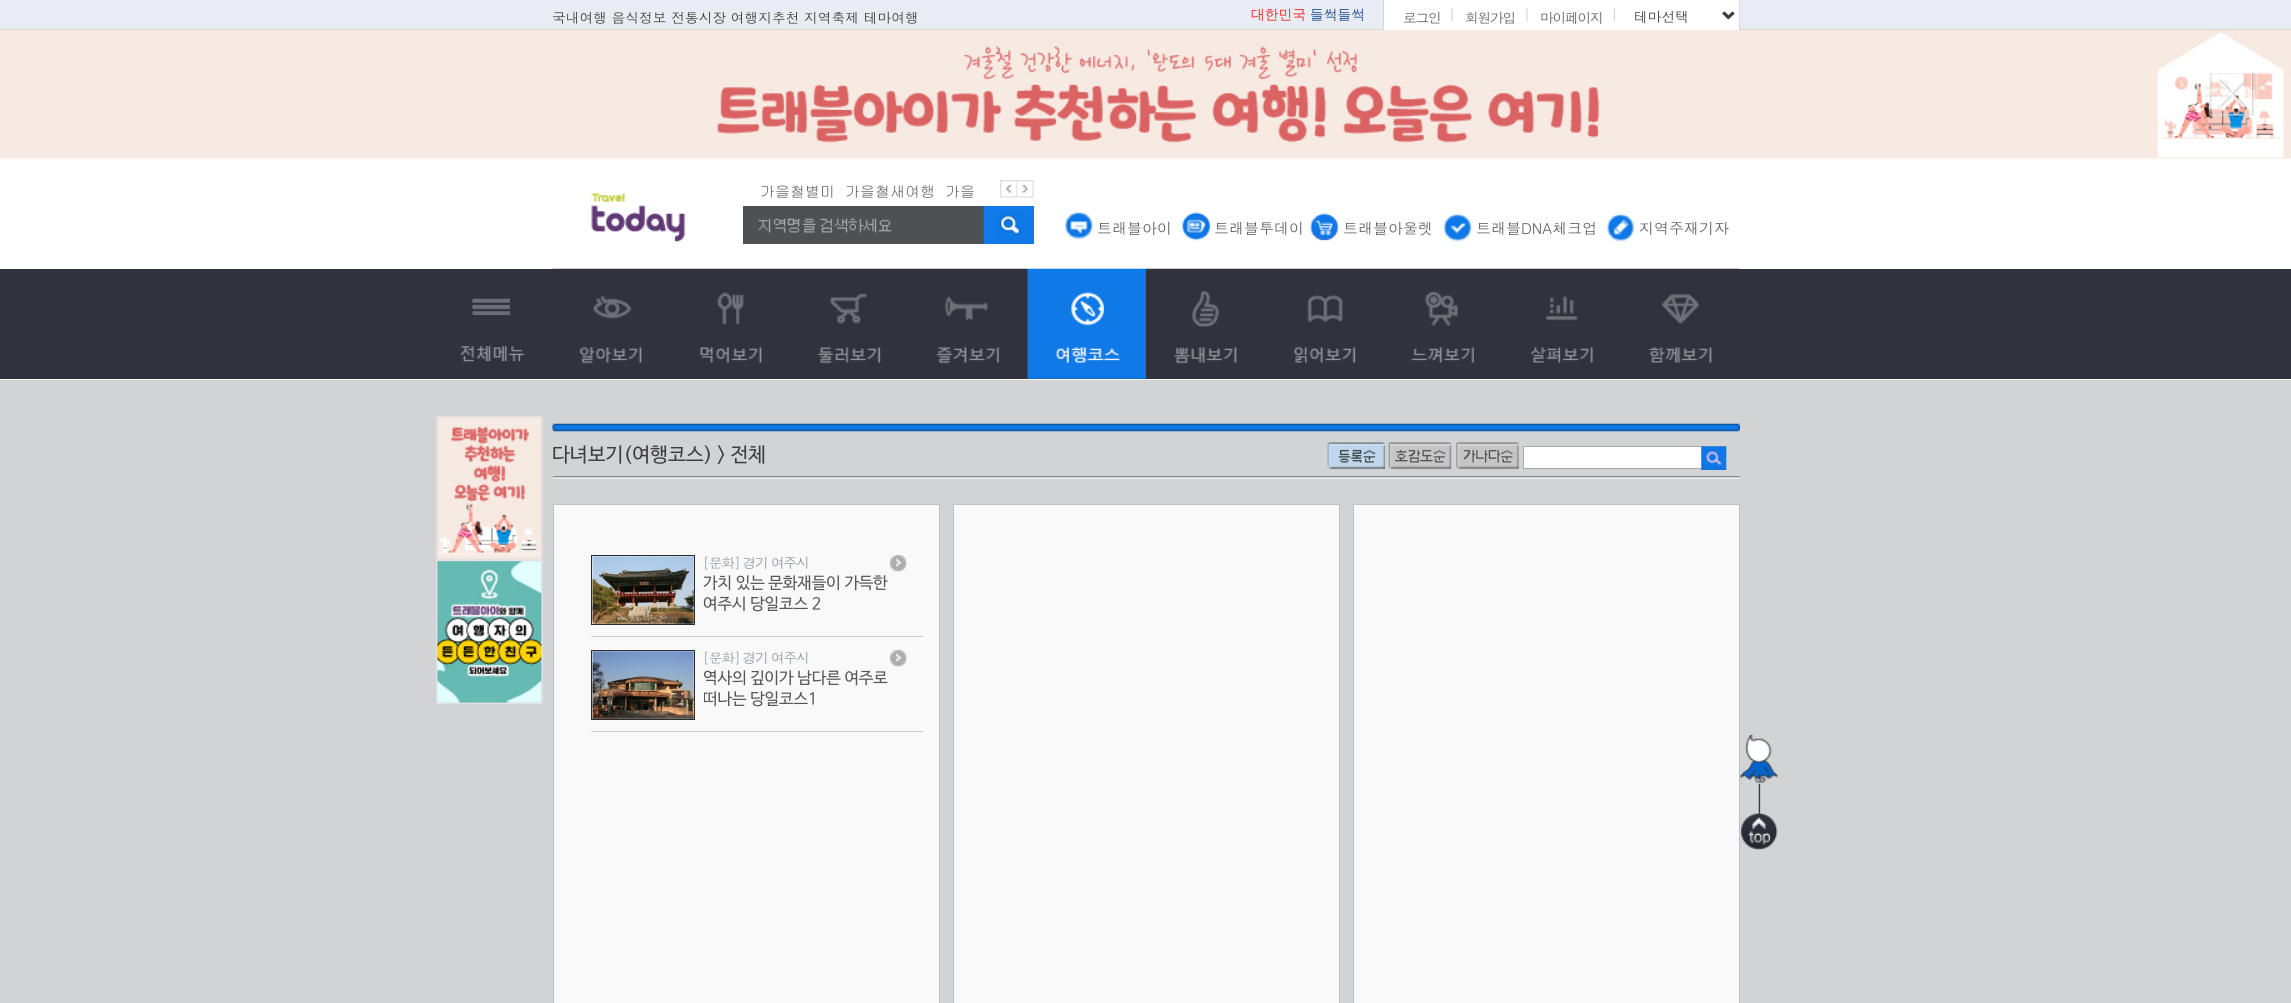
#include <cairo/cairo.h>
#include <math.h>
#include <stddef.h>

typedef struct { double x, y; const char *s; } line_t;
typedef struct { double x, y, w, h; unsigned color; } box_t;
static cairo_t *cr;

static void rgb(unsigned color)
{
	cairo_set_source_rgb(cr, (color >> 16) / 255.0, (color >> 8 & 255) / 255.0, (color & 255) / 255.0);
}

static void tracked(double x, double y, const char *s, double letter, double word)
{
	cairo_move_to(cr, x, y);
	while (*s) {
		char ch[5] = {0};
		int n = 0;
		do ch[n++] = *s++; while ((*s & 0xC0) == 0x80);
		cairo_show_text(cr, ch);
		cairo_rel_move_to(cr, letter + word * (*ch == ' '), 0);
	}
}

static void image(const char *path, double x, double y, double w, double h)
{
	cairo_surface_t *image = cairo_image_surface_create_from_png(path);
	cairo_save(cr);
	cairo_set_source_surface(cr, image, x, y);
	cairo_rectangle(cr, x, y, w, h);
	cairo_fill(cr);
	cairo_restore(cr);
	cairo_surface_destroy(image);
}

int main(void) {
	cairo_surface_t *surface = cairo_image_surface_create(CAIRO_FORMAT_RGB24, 2291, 1003);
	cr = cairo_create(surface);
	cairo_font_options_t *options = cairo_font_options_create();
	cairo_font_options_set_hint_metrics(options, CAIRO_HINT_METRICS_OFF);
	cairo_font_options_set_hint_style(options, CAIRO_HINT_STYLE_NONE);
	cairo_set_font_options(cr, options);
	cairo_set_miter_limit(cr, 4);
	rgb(0xffffff);
	cairo_paint(cr);
	{
		static const box_t items[] = {
			{0, 0, 2291, 29, 0xe9ecf3},
			{0, 29, 2291, 1, 0xd6d7db},
			{1739, 0, 1, 30, 0xd5d7da},
			{1383, 0, 1, 30, 0xd5d7da},
			{1384, 0, 355, 30, 0xffffff},
		};
		for (size_t i = 0; i < sizeof items / sizeof *items; i++) {
			rgb(items[i].color);
			cairo_rectangle(cr, items[i].x, items[i].y, items[i].w, items[i].h);
			cairo_fill(cr);
		}
	}
	image("img/1.png", 1451, 8, 2, 14);
	image("img/1.png", 1526, 8, 2, 14);
	image("img/2.png", 1613, 8, 2, 14);
	image("img/3.png", 1723, 11, 12, 9);
	cairo_new_path(cr);
	cairo_move_to(cr, 1723, 12.5);
	cairo_line_to(cr, 1728, 17.5);
	cairo_line_to(cr, 1733, 12.5);
	rgb(0x3c3c3c);
	cairo_set_line_width(cr, 2.5);
	cairo_stroke(cr);
	image("img/4.png", 0, 30, 2291, 129);
	image("img/5.png", 2208, 72, 46, 44);
	rgb(0x30333e);
	cairo_rectangle(cr, 0, 269, 2291, 110);
	cairo_fill(cr);
	image("img/6.png", 591, 192, 95, 50);
	image("img/7.png", 1000, 180, 18, 18);
	image("img/8.png", 1017, 180, 17, 18);
	rgb(0x4f5053);
	cairo_rectangle(cr, 743, 206, 291, 38);
	cairo_fill(cr);
	image("img/9.png", 758, 218, 134, 15);
	image("img/10.png", 983, 206, 51, 38);
	image("img/11.png", 983, 206, 51, 38);
	image("img/12.png", 1063, 209, 30, 32);
	image("img/13.png", 1179, 212, 32, 29);
	image("img/14.png", 1308, 213, 31, 33);
	image("img/15.png", 1440, 206, 32, 36);
	image("img/16.png", 1603, 213, 31, 29);
	image("img/17.png", 472, 298, 38, 17);
	image("img/18.png", 460, 346, 65, 16);
	image("img/19.png", 552, 268, 120, 96);
	image("img/20.png", 671, 268, 119, 95);
	image("img/21.png", 790, 268, 119, 96);
	image("img/22.png", 908, 268, 120, 96);
	image("img/23.png", 1027, 268, 120, 111);
	image("img/24.png", 1146, 268, 119, 111);
	image("img/25.png", 1265, 268, 119, 95);
	image("img/26.png", 1383, 268, 120, 95);
	image("img/27.png", 1502, 268, 120, 95);
	image("img/28.png", 1621, 268, 119, 95);
	rgb(0xd2d3d5);
	cairo_rectangle(cr, 0, 380, 2291, 623);
	cairo_fill(cr);
	cairo_rectangle(cr, 436.5, 416.5, 106, 143);
	rgb(0xe3e3e3);
	cairo_set_line_width(cr, 1);
	cairo_stroke(cr);
	image("img/29.png", 437, 417, 105, 142);
	cairo_rectangle(cr, 436.5, 560.5, 106, 143);
	cairo_stroke(cr);
	image("img/30.png", 437, 561, 105, 142);
	image("img/31.png", 552, 423, 1188, 9);
	rgb(0x898989);
	cairo_rectangle(cr, 553, 476, 1187, 1);
	cairo_fill(cr);
	image("img/32.png", 1327, 442, 58, 27);
	image("img/33.png", 1388, 442, 64, 27);
	image("img/34.png", 1456, 442, 63, 27);
	rgb(0xffffff);
	cairo_rectangle(cr, 1524, 447, 178, 21);
	cairo_fill(cr);
	cairo_rectangle(cr, 1523.5, 446.5, 181, 22);
	rgb(0xa9a9a9);
	cairo_stroke(cr);
	image("img/35.png", 1701, 446, 26, 24);
	rgb(0xedecec);
	cairo_rectangle(cr, 553, 478, 1187, 1);
	cairo_fill(cr);
	rgb(0xf9f9f9);
	cairo_rectangle(cr, 553.5, 504.5, 386, 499);
	cairo_fill_preserve(cr);
	rgb(0xbfbfbf);
	cairo_stroke(cr);
	rgb(0xcccccc);
	cairo_rectangle(cr, 591, 636, 332, 1);
	cairo_fill(cr);
	image("img/36.png", 890, 555, 17, 17);
	cairo_rectangle(cr, 591.5, 555.5, 103, 69);
	rgb(0x2b2b2b);
	cairo_stroke(cr);
	image("img/37.png", 592, 556, 102, 68);
	rgb(0xcccccc);
	cairo_rectangle(cr, 591, 731, 332, 1);
	cairo_fill(cr);
	image("img/36.png", 890, 650, 17, 17);
	cairo_rectangle(cr, 591.5, 650.5, 103, 69);
	rgb(0x2b2b2b);
	cairo_stroke(cr);
	image("img/38.png", 592, 651, 102, 68);
	rgb(0xf9f9f9);
	cairo_rectangle(cr, 953.5, 504.5, 386, 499);
	cairo_fill_preserve(cr);
	rgb(0xbfbfbf);
	cairo_stroke(cr);
	rgb(0xf9f9f9);
	cairo_rectangle(cr, 1353.5, 504.5, 386, 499);
	cairo_fill_preserve(cr);
	rgb(0xbfbfbf);
	cairo_stroke(cr);
	image("img/39.png", 1739, 734, 39, 116);
	cairo_select_font_face(cr, "Dotum", CAIRO_FONT_SLANT_NORMAL, CAIRO_FONT_WEIGHT_NORMAL);
	cairo_set_font_size(cr, 13.75);
	rgb(0x3c3c3c);
	cairo_move_to(cr, 552, 23);
	cairo_show_text(cr, "국내여행 음식정보 전통시장 여행지추천 지역축제 테마여행");
	cairo_select_font_face(cr, "WenQuanYi Zen Hei Medium", CAIRO_FONT_SLANT_NORMAL, CAIRO_FONT_WEIGHT_NORMAL);
	rgb(0xf52a2a);
	cairo_move_to(cr, 1251, 19);
	cairo_show_text(cr, "대한민국");
	rgb(0x28569a);
	cairo_move_to(cr, 1310, 19);
	cairo_show_text(cr, "들썩들썩");
	cairo_select_font_face(cr, "Dotum", CAIRO_FONT_SLANT_NORMAL, CAIRO_FONT_WEIGHT_NORMAL);
	rgb(0x606060);
	{
		static const line_t items[] = {
			{1403, 23, "로그인"},
			{1465, 23, "회원가입"},
			{1540, 23, "마이페이지"},
		};
		for (size_t i = 0; i < sizeof items / sizeof *items; i++) {
			tracked(items[i].x, items[i].y, items[i].s, -1.25, 0);
		}
	}
	rgb(0x3c3c3c);
	cairo_move_to(cr, 1634, 22);
	cairo_show_text(cr, "테마선택");
	cairo_select_font_face(cr, "Gulim", CAIRO_FONT_SLANT_NORMAL, CAIRO_FONT_WEIGHT_NORMAL);
	cairo_set_font_size(cr, 15);
	rgb(0x606060);
	{
		static const line_t items[] = {
			{760, 197, "가을철별미"},
			{845, 197, "가을철새여행"},
			{945, 197, "가을"},
		};
		for (size_t i = 0; i < sizeof items / sizeof *items; i++) {
			cairo_move_to(cr, items[i].x, items[i].y);
			cairo_show_text(cr, items[i].s);
		}
	}
	cairo_select_font_face(cr, "Dotum", CAIRO_FONT_SLANT_NORMAL, CAIRO_FONT_WEIGHT_NORMAL);
	{
		static const line_t items[] = {
			{1097, 234, "트래블아이"},
			{1214, 234, "트래블투데이"},
			{1343, 234, "트래블아울렛"},
			{1476, 234, "트래블DNA체크업"},
			{1639, 234, "지역주재기자"},
		};
		for (size_t i = 0; i < sizeof items / sizeof *items; i++) {
			cairo_move_to(cr, items[i].x, items[i].y);
			cairo_show_text(cr, items[i].s);
		}
	}
	cairo_select_font_face(cr, "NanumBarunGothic", CAIRO_FONT_SLANT_NORMAL, CAIRO_FONT_WEIGHT_NORMAL);
	cairo_set_font_size(cr, 20);
	rgb(0x3c3c3c);
	cairo_move_to(cr, 552, 461);
	cairo_show_text(cr, "다녀보기(여행코스) > 전체");
	cairo_select_font_face(cr, "Dotum", CAIRO_FONT_SLANT_NORMAL, CAIRO_FONT_WEIGHT_NORMAL);
	cairo_set_font_size(cr, 13.75);
	rgb(0x8e98a4);
	tracked(703, 568, "[문화] 경기 여주시", -1.25, 0);
	cairo_select_font_face(cr, "NanumBarunGothic", CAIRO_FONT_SLANT_NORMAL, CAIRO_FONT_WEIGHT_NORMAL);
	cairo_set_font_size(cr, 16.25);
	rgb(0x555555);
	cairo_move_to(cr, 703, 588);
	cairo_show_text(cr, "가치 있는 문화재들이 가득한");
	cairo_move_to(cr, 703, 609);
	cairo_show_text(cr, "여주시 당일코스 2");
	cairo_select_font_face(cr, "Dotum", CAIRO_FONT_SLANT_NORMAL, CAIRO_FONT_WEIGHT_NORMAL);
	cairo_set_font_size(cr, 13.75);
	rgb(0x8e98a4);
	tracked(703, 663, "[문화] 경기 여주시", -1.25, 0);
	cairo_select_font_face(cr, "NanumBarunGothic", CAIRO_FONT_SLANT_NORMAL, CAIRO_FONT_WEIGHT_NORMAL);
	cairo_set_font_size(cr, 16.25);
	rgb(0x555555);
	cairo_move_to(cr, 703, 683);
	cairo_show_text(cr, "역사의 깊이가 남다른 여주로");
	cairo_save(cr);
	cairo_rectangle(cr, 704, 669, 219, 40);
	cairo_clip(cr);
	cairo_move_to(cr, 703, 704);
	cairo_show_text(cr, "떠나는 당일코스1");
	cairo_restore(cr);
	cairo_surface_write_to_png(surface, "page.png");
	cairo_font_options_destroy(options);
	cairo_destroy(cr);
	cairo_surface_destroy(surface);
	return 0;
}
